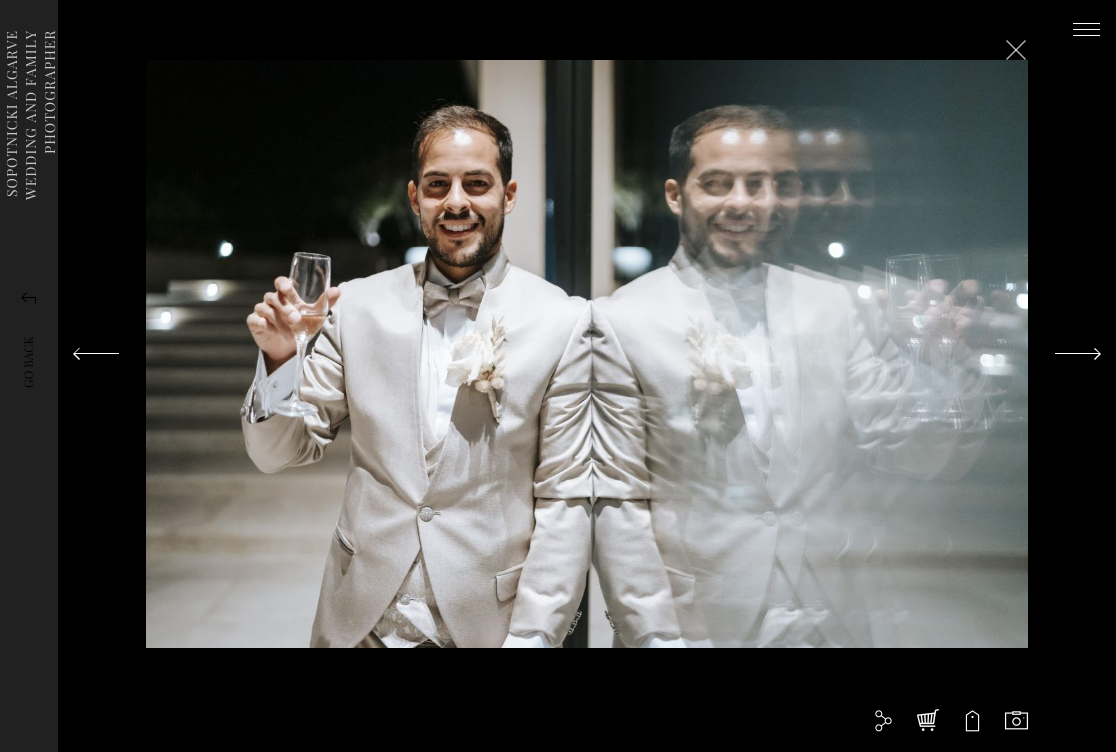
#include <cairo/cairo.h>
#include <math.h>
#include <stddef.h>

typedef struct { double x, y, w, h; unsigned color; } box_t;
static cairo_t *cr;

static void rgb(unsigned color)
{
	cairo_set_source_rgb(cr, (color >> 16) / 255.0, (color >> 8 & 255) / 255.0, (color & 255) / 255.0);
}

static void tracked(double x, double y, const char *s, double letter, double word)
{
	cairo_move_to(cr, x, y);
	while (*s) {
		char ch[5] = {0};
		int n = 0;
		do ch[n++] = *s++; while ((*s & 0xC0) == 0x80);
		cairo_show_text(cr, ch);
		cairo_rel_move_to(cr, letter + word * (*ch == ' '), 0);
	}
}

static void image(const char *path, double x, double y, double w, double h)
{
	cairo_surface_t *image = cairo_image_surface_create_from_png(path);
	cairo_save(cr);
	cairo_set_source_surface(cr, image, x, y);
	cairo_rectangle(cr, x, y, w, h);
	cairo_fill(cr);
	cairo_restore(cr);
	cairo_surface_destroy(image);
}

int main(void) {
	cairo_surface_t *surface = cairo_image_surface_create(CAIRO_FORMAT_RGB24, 1116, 752);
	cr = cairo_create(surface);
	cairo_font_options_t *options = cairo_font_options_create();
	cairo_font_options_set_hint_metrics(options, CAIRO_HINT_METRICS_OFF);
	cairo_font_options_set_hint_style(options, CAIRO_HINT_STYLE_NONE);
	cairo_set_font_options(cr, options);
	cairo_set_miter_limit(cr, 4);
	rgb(0x000000);
	cairo_paint(cr);
	rgb(0x212121);
	cairo_rectangle(cr, 0, 0, 58, 752);
	cairo_fill(cr);
	image("img/1.png", 21, 292, 16, 12);
	rgb(0xb3b3b3);
	cairo_new_path(cr);
	cairo_move_to(cr, 1007, 40);
	cairo_line_to(cr, 1026, 59);
	cairo_line_to(cr, 1025, 60);
	cairo_line_to(cr, 1006, 41);
	cairo_close_path(cr);
	cairo_fill(cr);
	cairo_set_source_rgba(cr, 1, 1, 1, 0.7);
	cairo_new_path(cr);
	cairo_move_to(cr, 1006, 59);
	cairo_line_to(cr, 1025, 40);
	cairo_line_to(cr, 1026, 41);
	cairo_line_to(cr, 1007, 60);
	cairo_close_path(cr);
	cairo_fill(cr);
	rgb(0xffffff);
	cairo_new_path(cr);
	cairo_move_to(cr, 79, 360);
	cairo_line_to(cr, 80, 359);
	cairo_line_to(cr, 75, 354);
	cairo_line_to(cr, 119, 354);
	cairo_line_to(cr, 119, 353);
	cairo_line_to(cr, 75, 353);
	cairo_line_to(cr, 80, 348);
	cairo_line_to(cr, 79, 348);
	cairo_line_to(cr, 73, 354);
	cairo_close_path(cr);
	cairo_fill(cr);
	image("img/2.png", 146, 60, 882, 588);
	cairo_new_path(cr);
	cairo_move_to(cr, 1095, 348);
	cairo_line_to(cr, 1094, 349);
	cairo_line_to(cr, 1099, 353);
	cairo_line_to(cr, 1055, 353);
	cairo_line_to(cr, 1055, 354);
	cairo_line_to(cr, 1099, 354);
	cairo_line_to(cr, 1094, 359);
	cairo_line_to(cr, 1095, 360);
	cairo_line_to(cr, 1101, 354);
	cairo_close_path(cr);
	cairo_fill(cr);
	image("img/3.png", 875, 710, 17, 22);
	image("img/4.png", 917, 709, 22, 22);
	image("img/5.png", 965, 710, 15, 22);
	image("img/6.png", 1004, 711, 25, 19);
	{
		static const box_t items[] = {
			{1073, 29, 27, 1, 0xffffff},
			{1073, 23, 27, 1, 0xffffff},
			{1073, 35, 27, 1, 0xffffff},
		};
		for (size_t i = 0; i < sizeof items / sizeof *items; i++) {
			rgb(items[i].color);
			cairo_rectangle(cr, items[i].x, items[i].y, items[i].w, items[i].h);
			cairo_fill(cr);
		}
	}
	cairo_select_font_face(cr, "Playfair Display", CAIRO_FONT_SLANT_NORMAL, CAIRO_FONT_WEIGHT_NORMAL);
	cairo_set_font_size(cr, 14);
	rgb(0xc8c8c8);
	cairo_save(cr);
	cairo_translate(cr, 17, 197);
	cairo_rotate(cr, -90 * M_PI / 180);
	tracked(0, 0, "SOPOTNICKI ALGARVE", 1, 0);
	cairo_restore(cr);
	cairo_save(cr);
	cairo_translate(cr, 36, 200);
	cairo_rotate(cr, -90 * M_PI / 180);
	tracked(0, 0, "WEDDING AND FAMILY", 1, 0);
	cairo_restore(cr);
	cairo_save(cr);
	cairo_translate(cr, 55, 154);
	cairo_rotate(cr, -90 * M_PI / 180);
	tracked(0, 0, "PHOTOGRAPHER", 1, 0);
	cairo_restore(cr);
	cairo_set_font_size(cr, 12);
	rgb(0x000000);
	cairo_save(cr);
	cairo_translate(cr, 33, 388);
	cairo_rotate(cr, -90 * M_PI / 180);
	cairo_move_to(cr, 0, 0);
	cairo_show_text(cr, "GO BACK");
	cairo_restore(cr);
	cairo_surface_write_to_png(surface, "page.png");
	cairo_font_options_destroy(options);
	cairo_destroy(cr);
	cairo_surface_destroy(surface);
	return 0;
}
